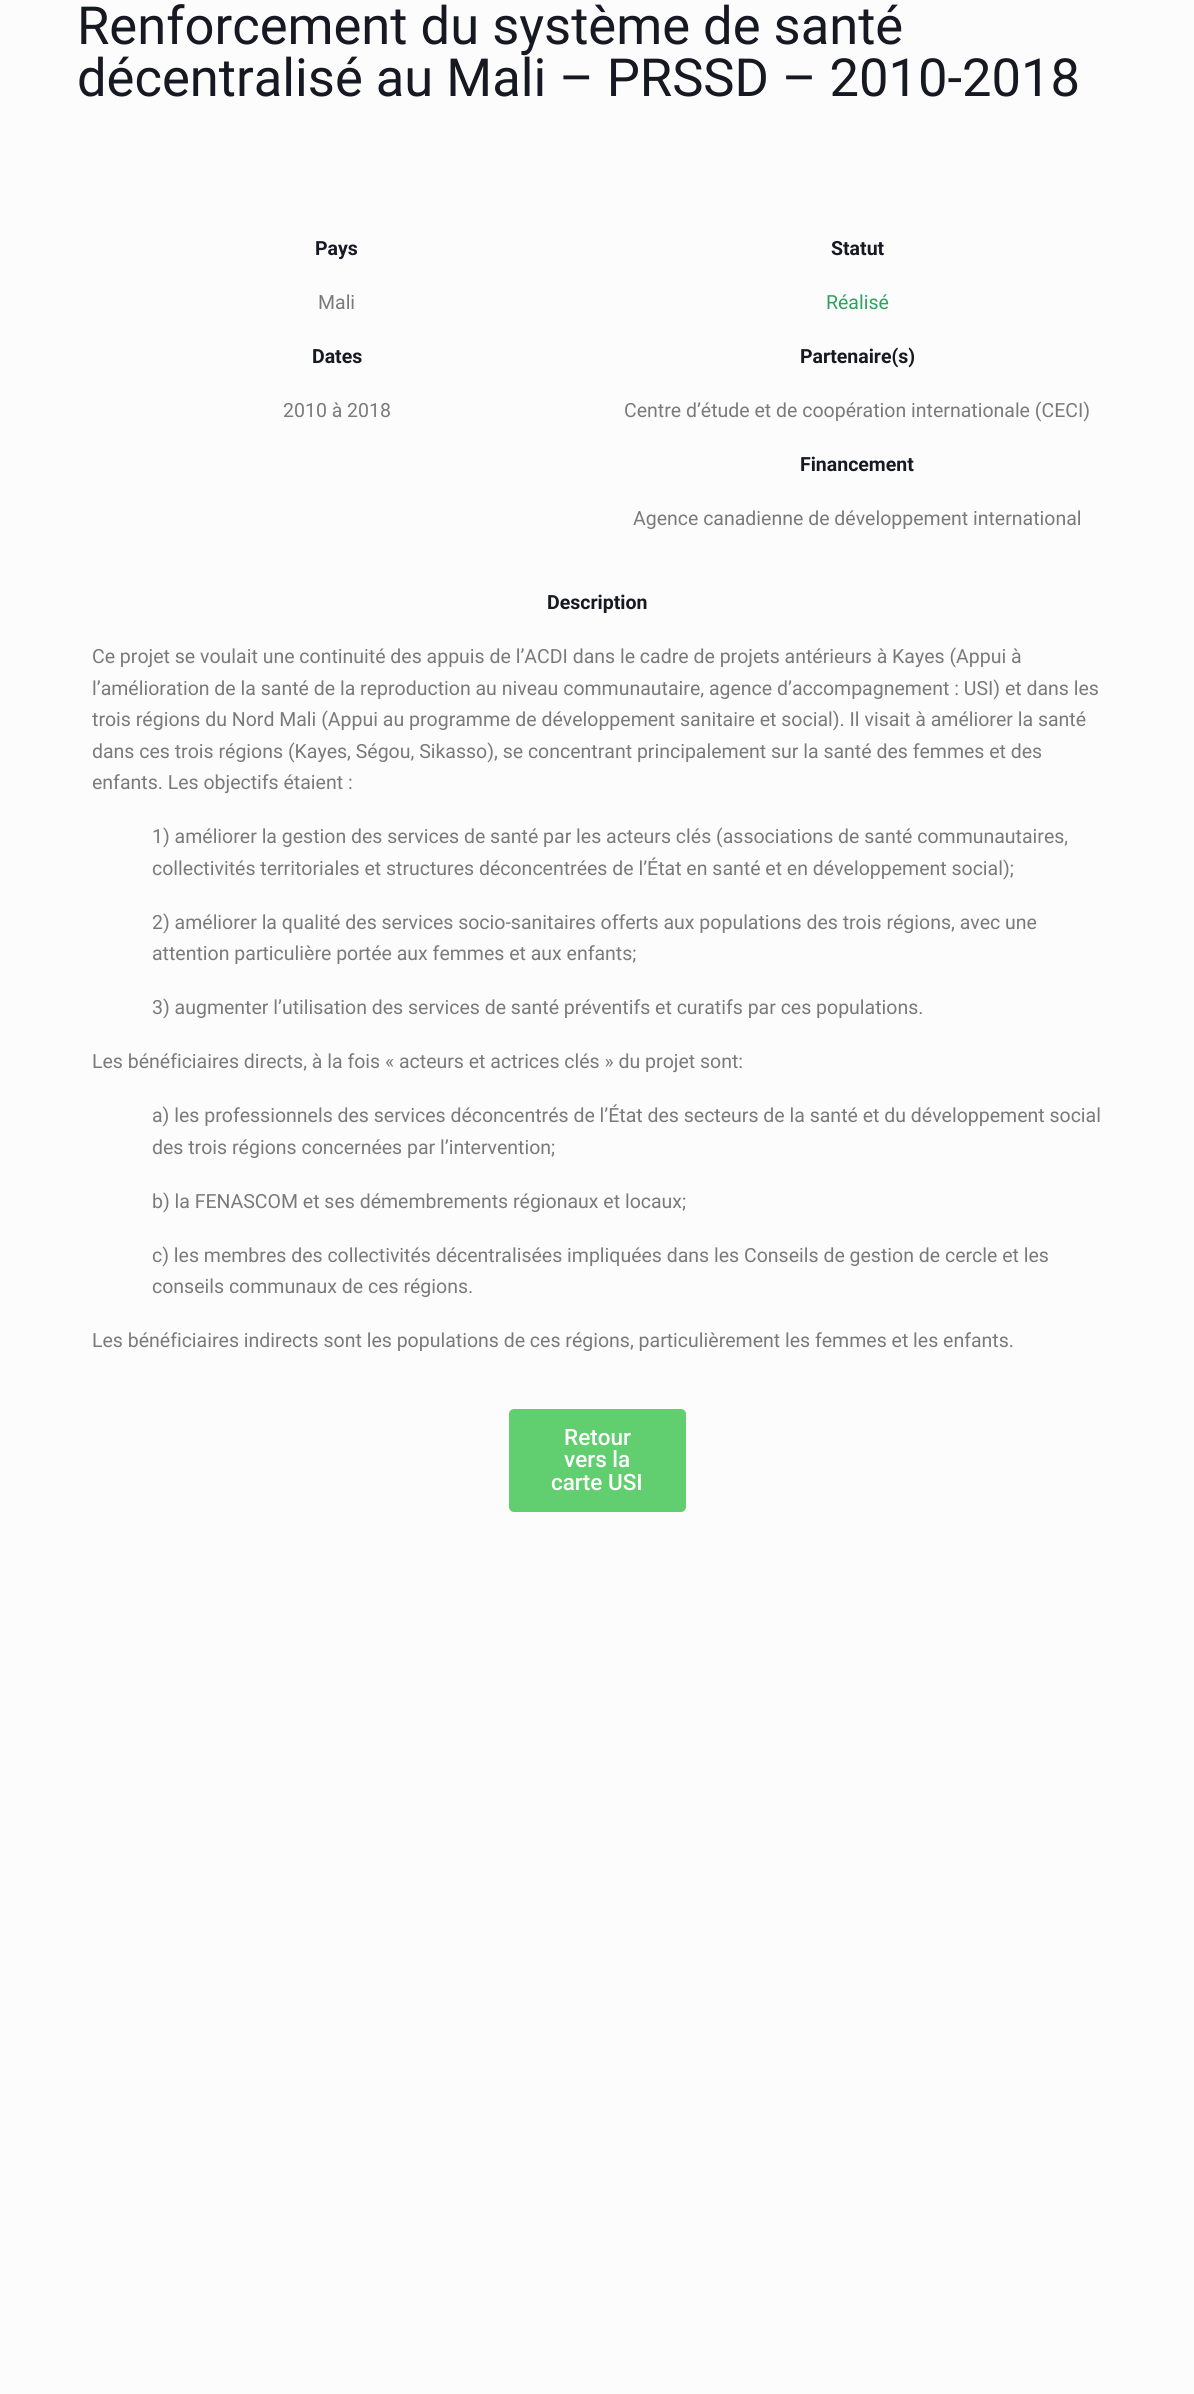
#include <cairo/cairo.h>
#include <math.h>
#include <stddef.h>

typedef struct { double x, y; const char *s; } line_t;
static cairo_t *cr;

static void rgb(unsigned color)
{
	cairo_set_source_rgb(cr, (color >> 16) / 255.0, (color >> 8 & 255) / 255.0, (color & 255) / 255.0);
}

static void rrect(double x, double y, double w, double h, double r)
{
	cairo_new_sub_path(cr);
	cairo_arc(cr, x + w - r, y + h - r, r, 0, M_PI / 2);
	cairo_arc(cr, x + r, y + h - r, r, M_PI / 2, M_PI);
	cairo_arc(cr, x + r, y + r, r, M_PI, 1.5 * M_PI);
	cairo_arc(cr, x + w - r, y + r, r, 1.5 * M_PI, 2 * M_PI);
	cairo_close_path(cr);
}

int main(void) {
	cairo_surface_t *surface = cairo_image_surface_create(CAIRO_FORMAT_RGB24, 1194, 2394);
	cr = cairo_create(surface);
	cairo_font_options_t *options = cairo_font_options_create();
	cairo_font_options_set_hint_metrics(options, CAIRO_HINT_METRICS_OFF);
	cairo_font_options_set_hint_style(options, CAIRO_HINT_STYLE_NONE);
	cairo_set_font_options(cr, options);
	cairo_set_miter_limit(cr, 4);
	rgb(0xfcfcfc);
	cairo_paint(cr);
	rgb(0x61ce70);
	rrect(509, 1409, 177, 103, 5);
	cairo_fill(cr);
	cairo_select_font_face(cr, "Roboto", CAIRO_FONT_SLANT_NORMAL, CAIRO_FONT_WEIGHT_NORMAL);
	cairo_set_font_size(cr, 52.5);
	rgb(0x161922);
	cairo_move_to(cr, 77, 44);
	cairo_show_text(cr, "Renforcement du système de santé");
	cairo_move_to(cr, 77, 96);
	cairo_show_text(cr, "décentralisé au Mali – PRSSD – 2010-2018");
	cairo_select_font_face(cr, "Roboto", CAIRO_FONT_SLANT_NORMAL, CAIRO_FONT_WEIGHT_BOLD);
	cairo_set_font_size(cr, 19.5);
	cairo_move_to(cr, 315, 255);
	cairo_show_text(cr, "Pays");
	cairo_select_font_face(cr, "Roboto", CAIRO_FONT_SLANT_NORMAL, CAIRO_FONT_WEIGHT_NORMAL);
	rgb(0x7a7a7a);
	cairo_move_to(cr, 318, 309);
	cairo_show_text(cr, "Mali");
	cairo_select_font_face(cr, "Roboto", CAIRO_FONT_SLANT_NORMAL, CAIRO_FONT_WEIGHT_BOLD);
	rgb(0x161922);
	cairo_move_to(cr, 312, 363);
	cairo_show_text(cr, "Dates");
	cairo_select_font_face(cr, "Roboto", CAIRO_FONT_SLANT_NORMAL, CAIRO_FONT_WEIGHT_NORMAL);
	rgb(0x7a7a7a);
	cairo_move_to(cr, 283, 417);
	cairo_show_text(cr, "2010 à 2018");
	cairo_select_font_face(cr, "Roboto", CAIRO_FONT_SLANT_NORMAL, CAIRO_FONT_WEIGHT_BOLD);
	rgb(0x161922);
	cairo_move_to(cr, 831, 255);
	cairo_show_text(cr, "Statut");
	cairo_select_font_face(cr, "Roboto", CAIRO_FONT_SLANT_NORMAL, CAIRO_FONT_WEIGHT_NORMAL);
	rgb(0x2ca25f);
	cairo_move_to(cr, 826, 309);
	cairo_show_text(cr, "Réalisé");
	cairo_select_font_face(cr, "Roboto", CAIRO_FONT_SLANT_NORMAL, CAIRO_FONT_WEIGHT_BOLD);
	rgb(0x161922);
	cairo_move_to(cr, 800, 363);
	cairo_show_text(cr, "Partenaire(s)");
	cairo_select_font_face(cr, "Roboto", CAIRO_FONT_SLANT_NORMAL, CAIRO_FONT_WEIGHT_NORMAL);
	rgb(0x7a7a7a);
	cairo_move_to(cr, 624, 417);
	cairo_show_text(cr, "Centre d’étude et de coopération internationale (CECI)");
	cairo_select_font_face(cr, "Roboto", CAIRO_FONT_SLANT_NORMAL, CAIRO_FONT_WEIGHT_BOLD);
	rgb(0x161922);
	cairo_move_to(cr, 800, 471);
	cairo_show_text(cr, "Financement");
	cairo_select_font_face(cr, "Roboto", CAIRO_FONT_SLANT_NORMAL, CAIRO_FONT_WEIGHT_NORMAL);
	rgb(0x7a7a7a);
	cairo_move_to(cr, 633, 525);
	cairo_show_text(cr, "Agence canadienne de développement international");
	cairo_select_font_face(cr, "Roboto", CAIRO_FONT_SLANT_NORMAL, CAIRO_FONT_WEIGHT_BOLD);
	rgb(0x161922);
	cairo_move_to(cr, 547, 609);
	cairo_show_text(cr, "Description");
	cairo_select_font_face(cr, "Roboto", CAIRO_FONT_SLANT_NORMAL, CAIRO_FONT_WEIGHT_NORMAL);
	rgb(0x7a7a7a);
	{
		static const line_t items[] = {
			{92, 663, "Ce projet se voulait une continuité des appuis de l’ACDI dans le cadre de projets antérieurs à Kayes (Appui à"},
			{92, 695, "l’amélioration de la santé de la reproduction au niveau communautaire, agence d’accompagnement : USI) et dans les"},
			{92, 726, "trois régions du Nord Mali (Appui au programme de développement sanitaire et social). Il visait à améliorer la santé"},
			{92, 758, "dans ces trois régions (Kayes, Ségou, Sikasso), se concentrant principalement sur la santé des femmes et des"},
			{92, 789, "enfants. Les objectifs étaient :"},
			{152, 843, "1) améliorer la gestion des services de santé par les acteurs clés (associations de santé communautaires,"},
			{152, 875, "collectivités territoriales et structures déconcentrées de l’État en santé et en développement social);"},
			{152, 929, "2) améliorer la qualité des services socio-sanitaires offerts aux populations des trois régions, avec une"},
			{152, 960, "attention particulière portée aux femmes et aux enfants;"},
			{152, 1014, "3) augmenter l’utilisation des services de santé préventifs et curatifs par ces populations."},
			{92, 1068, "Les bénéficiaires directs, à la fois « acteurs et actrices clés » du projet sont:"},
			{152, 1122, "a) les professionnels des services déconcentrés de l’État des secteurs de la santé et du développement social"},
			{152, 1154, "des trois régions concernées par l’intervention;"},
			{152, 1208, "b) la FENASCOM et ses démembrements régionaux et locaux;"},
			{152, 1262, "c) les membres des collectivités décentralisées impliquées dans les Conseils de gestion de cercle et les"},
			{152, 1293, "conseils communaux de ces régions."},
			{92, 1347, "Les bénéficiaires indirects sont les populations de ces régions, particulièrement les femmes et les enfants."},
		};
		for (size_t i = 0; i < sizeof items / sizeof *items; i++) {
			cairo_move_to(cr, items[i].x, items[i].y);
			cairo_show_text(cr, items[i].s);
		}
	}
	cairo_select_font_face(cr, "Roboto Medium", CAIRO_FONT_SLANT_NORMAL, CAIRO_FONT_WEIGHT_NORMAL);
	cairo_set_font_size(cr, 22.5);
	rgb(0xffffff);
	{
		static const line_t items[] = {
			{564, 1445, "Retour"},
			{564, 1467, "vers la"},
			{551, 1490, "carte USI"},
		};
		for (size_t i = 0; i < sizeof items / sizeof *items; i++) {
			cairo_move_to(cr, items[i].x, items[i].y);
			cairo_show_text(cr, items[i].s);
		}
	}
	cairo_surface_write_to_png(surface, "page.png");
	cairo_font_options_destroy(options);
	cairo_destroy(cr);
	cairo_surface_destroy(surface);
	return 0;
}
